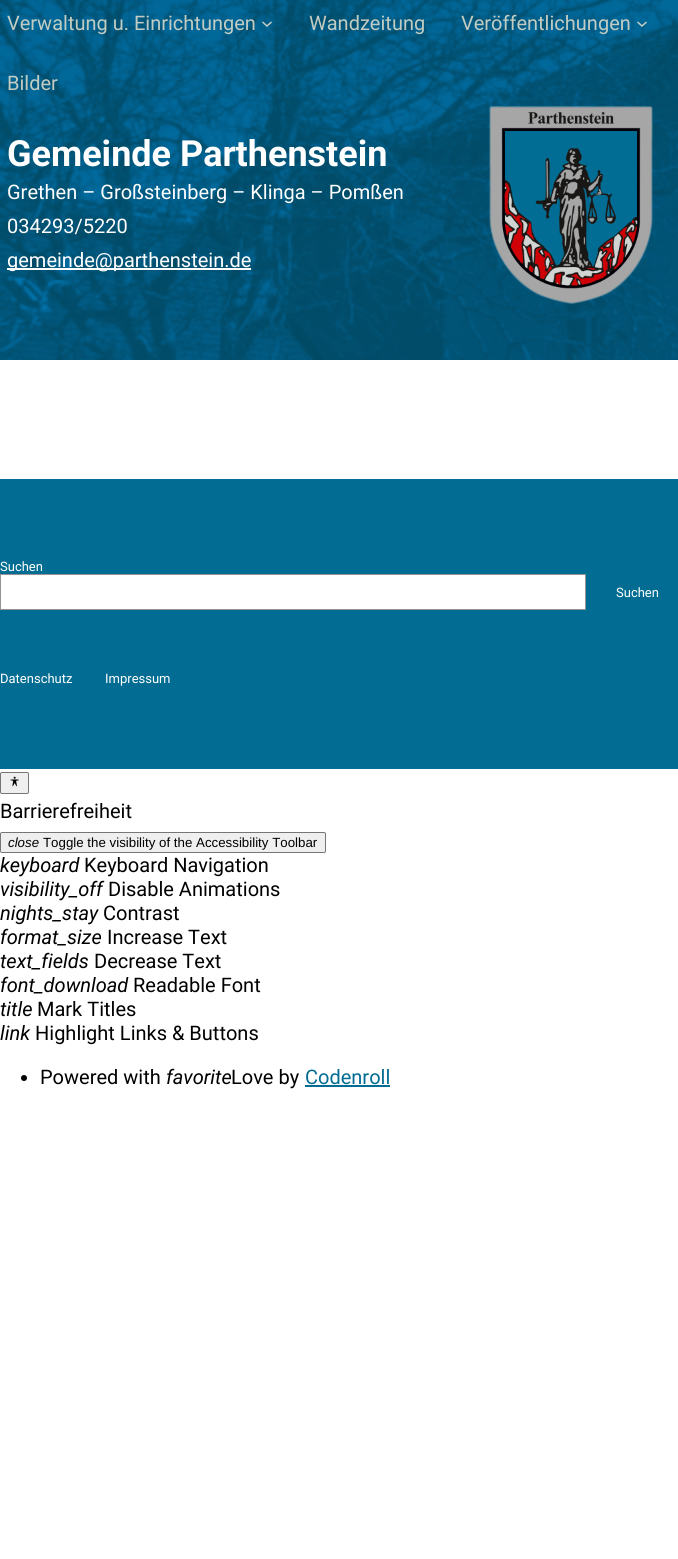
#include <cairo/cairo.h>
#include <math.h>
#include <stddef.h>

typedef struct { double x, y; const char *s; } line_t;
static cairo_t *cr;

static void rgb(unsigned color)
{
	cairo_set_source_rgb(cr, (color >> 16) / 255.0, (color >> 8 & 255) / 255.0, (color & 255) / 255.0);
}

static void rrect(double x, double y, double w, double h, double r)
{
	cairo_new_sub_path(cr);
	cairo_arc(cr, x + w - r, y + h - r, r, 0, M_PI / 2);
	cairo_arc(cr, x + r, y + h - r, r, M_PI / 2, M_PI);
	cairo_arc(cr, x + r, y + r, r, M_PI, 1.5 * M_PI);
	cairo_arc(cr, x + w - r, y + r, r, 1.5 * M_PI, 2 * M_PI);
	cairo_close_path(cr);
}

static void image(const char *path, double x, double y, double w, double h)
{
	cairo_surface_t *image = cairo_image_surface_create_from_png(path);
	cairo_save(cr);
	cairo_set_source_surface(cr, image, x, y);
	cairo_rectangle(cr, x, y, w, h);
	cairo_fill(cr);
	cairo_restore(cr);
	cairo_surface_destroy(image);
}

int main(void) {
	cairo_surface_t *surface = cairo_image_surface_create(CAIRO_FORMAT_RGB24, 678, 1559);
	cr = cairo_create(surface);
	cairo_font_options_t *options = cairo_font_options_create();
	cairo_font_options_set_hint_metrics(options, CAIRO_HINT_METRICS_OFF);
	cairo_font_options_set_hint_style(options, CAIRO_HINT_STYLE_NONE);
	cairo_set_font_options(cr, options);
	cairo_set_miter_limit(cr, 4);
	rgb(0xffffff);
	cairo_paint(cr);
	image("img/1.png", 0, 0, 678, 360);
	cairo_new_path(cr);
	cairo_move_to(cr, 262.5, 22);
	cairo_line_to(cr, 267, 26);
	cairo_line_to(cr, 271.5, 22);
	rgb(0xc2ccc2);
	cairo_set_line_width(cr, 1.5);
	cairo_stroke(cr);
	cairo_new_path(cr);
	cairo_move_to(cr, 637.5, 22);
	cairo_line_to(cr, 642, 26);
	cairo_line_to(cr, 646.5, 22);
	cairo_stroke(cr);
	rgb(0xffffff);
	cairo_rectangle(cr, 7, 268, 244, 2);
	cairo_fill(cr);
	image("img/2.png", 489, 106, 164, 198);
	rgb(0x026c93);
	cairo_rectangle(cr, 0, 479, 678, 290);
	cairo_fill(cr);
	rgb(0xffffff);
	cairo_rectangle(cr, 0.5, 574.5, 585, 35);
	cairo_fill_preserve(cr);
	rgb(0x949494);
	cairo_set_line_width(cr, 1);
	cairo_stroke(cr);
	rgb(0xefefef);
	rrect(0.5, 772.5, 28, 21, 1.5);
	cairo_fill_preserve(cr);
	rgb(0x767676);
	cairo_stroke(cr);
	image("img/3.png", 10, 776, 9, 11);
	rgb(0xefefef);
	rrect(0.5, 832.5, 325, 20, 1.5);
	cairo_fill_preserve(cr);
	rgb(0x767676);
	cairo_stroke(cr);
	rgb(0x000000);
	cairo_arc(cr, 24, 1078, 3, 0, 2 * M_PI);
	cairo_fill(cr);
	rgb(0x026c93);
	cairo_rectangle(cr, 305, 1085, 85, 2);
	cairo_fill(cr);
	cairo_select_font_face(cr, "Roboto", CAIRO_FONT_SLANT_NORMAL, CAIRO_FONT_WEIGHT_NORMAL);
	cairo_set_font_size(cr, 20);
	rgb(0xc2ccc2);
	{
		static const line_t items[] = {
			{7, 30, "Verwaltung u. Einrichtungen"},
			{309, 30, "Wandzeitung"},
			{461, 30, "Veröffentlichungen"},
			{7, 90, "Bilder"},
		};
		for (size_t i = 0; i < sizeof items / sizeof *items; i++) {
			cairo_move_to(cr, items[i].x, items[i].y);
			cairo_show_text(cr, items[i].s);
		}
	}
	cairo_select_font_face(cr, "Roboto", CAIRO_FONT_SLANT_NORMAL, CAIRO_FONT_WEIGHT_BOLD);
	cairo_set_font_size(cr, 36);
	rgb(0xffffff);
	cairo_move_to(cr, 7, 166);
	cairo_show_text(cr, "Gemeinde Parthenstein");
	cairo_select_font_face(cr, "Roboto", CAIRO_FONT_SLANT_NORMAL, CAIRO_FONT_WEIGHT_NORMAL);
	cairo_set_font_size(cr, 20);
	{
		static const line_t items[] = {
			{7, 199, "Grethen – Großsteinberg – Klinga – Pomßen"},
			{7, 233, "034293/5220"},
			{7, 267, "gemeinde@parthenstein.de"},
		};
		for (size_t i = 0; i < sizeof items / sizeof *items; i++) {
			cairo_move_to(cr, items[i].x, items[i].y);
			cairo_show_text(cr, items[i].s);
		}
	}
	cairo_set_font_size(cr, 13);
	{
		static const line_t items[] = {
			{0, 571, "Suchen"},
			{616, 597, "Suchen"},
			{0, 683, "Datenschutz"},
			{105, 683, "Impressum"},
		};
		for (size_t i = 0; i < sizeof items / sizeof *items; i++) {
			cairo_move_to(cr, items[i].x, items[i].y);
			cairo_show_text(cr, items[i].s);
		}
	}
	cairo_set_font_size(cr, 20);
	rgb(0x000000);
	cairo_move_to(cr, 0, 818);
	cairo_show_text(cr, "Barrierefreiheit");
	cairo_select_font_face(cr, "Liberation Sans", CAIRO_FONT_SLANT_ITALIC, CAIRO_FONT_WEIGHT_NORMAL);
	cairo_set_font_size(cr, 13.3);
	cairo_move_to(cr, 8, 847);
	cairo_show_text(cr, "close");
	cairo_select_font_face(cr, "Liberation Sans", CAIRO_FONT_SLANT_NORMAL, CAIRO_FONT_WEIGHT_NORMAL);
	cairo_move_to(cr, 43, 847);
	cairo_show_text(cr, "Toggle the visibility of the Accessibility Toolbar");
	cairo_select_font_face(cr, "Roboto", CAIRO_FONT_SLANT_ITALIC, CAIRO_FONT_WEIGHT_NORMAL);
	cairo_set_font_size(cr, 20);
	cairo_move_to(cr, 0, 872);
	cairo_show_text(cr, "keyboard");
	cairo_select_font_face(cr, "Roboto", CAIRO_FONT_SLANT_NORMAL, CAIRO_FONT_WEIGHT_NORMAL);
	cairo_move_to(cr, 84, 872);
	cairo_show_text(cr, "Keyboard Navigation");
	cairo_select_font_face(cr, "Roboto", CAIRO_FONT_SLANT_ITALIC, CAIRO_FONT_WEIGHT_NORMAL);
	cairo_move_to(cr, 0, 896);
	cairo_show_text(cr, "visibility_off");
	cairo_select_font_face(cr, "Roboto", CAIRO_FONT_SLANT_NORMAL, CAIRO_FONT_WEIGHT_NORMAL);
	cairo_move_to(cr, 108, 896);
	cairo_show_text(cr, "Disable Animations");
	cairo_select_font_face(cr, "Roboto", CAIRO_FONT_SLANT_ITALIC, CAIRO_FONT_WEIGHT_NORMAL);
	cairo_move_to(cr, 0, 920);
	cairo_show_text(cr, "nights_stay");
	cairo_select_font_face(cr, "Roboto", CAIRO_FONT_SLANT_NORMAL, CAIRO_FONT_WEIGHT_NORMAL);
	cairo_move_to(cr, 103, 920);
	cairo_show_text(cr, "Contrast");
	cairo_select_font_face(cr, "Roboto", CAIRO_FONT_SLANT_ITALIC, CAIRO_FONT_WEIGHT_NORMAL);
	cairo_move_to(cr, 0, 944);
	cairo_show_text(cr, "format_size");
	cairo_select_font_face(cr, "Roboto", CAIRO_FONT_SLANT_NORMAL, CAIRO_FONT_WEIGHT_NORMAL);
	cairo_move_to(cr, 107, 944);
	cairo_show_text(cr, "Increase Text");
	cairo_select_font_face(cr, "Roboto", CAIRO_FONT_SLANT_ITALIC, CAIRO_FONT_WEIGHT_NORMAL);
	cairo_move_to(cr, 0, 968);
	cairo_show_text(cr, "text_fields");
	cairo_select_font_face(cr, "Roboto", CAIRO_FONT_SLANT_NORMAL, CAIRO_FONT_WEIGHT_NORMAL);
	cairo_move_to(cr, 94, 968);
	cairo_show_text(cr, "Decrease Text");
	cairo_select_font_face(cr, "Roboto", CAIRO_FONT_SLANT_ITALIC, CAIRO_FONT_WEIGHT_NORMAL);
	cairo_move_to(cr, 0, 992);
	cairo_show_text(cr, "font_download");
	cairo_select_font_face(cr, "Roboto", CAIRO_FONT_SLANT_NORMAL, CAIRO_FONT_WEIGHT_NORMAL);
	cairo_move_to(cr, 133, 992);
	cairo_show_text(cr, "Readable Font");
	cairo_select_font_face(cr, "Roboto", CAIRO_FONT_SLANT_ITALIC, CAIRO_FONT_WEIGHT_NORMAL);
	cairo_move_to(cr, 0, 1016);
	cairo_show_text(cr, "title");
	cairo_select_font_face(cr, "Roboto", CAIRO_FONT_SLANT_NORMAL, CAIRO_FONT_WEIGHT_NORMAL);
	cairo_move_to(cr, 37, 1016);
	cairo_show_text(cr, "Mark Titles");
	cairo_select_font_face(cr, "Roboto", CAIRO_FONT_SLANT_ITALIC, CAIRO_FONT_WEIGHT_NORMAL);
	cairo_move_to(cr, 0, 1040);
	cairo_show_text(cr, "link");
	cairo_select_font_face(cr, "Roboto", CAIRO_FONT_SLANT_NORMAL, CAIRO_FONT_WEIGHT_NORMAL);
	cairo_move_to(cr, 35, 1040);
	cairo_show_text(cr, "Highlight Links & Buttons");
	cairo_move_to(cr, 40, 1084);
	cairo_show_text(cr, "Powered with");
	cairo_select_font_face(cr, "Roboto", CAIRO_FONT_SLANT_ITALIC, CAIRO_FONT_WEIGHT_NORMAL);
	cairo_move_to(cr, 166, 1084);
	cairo_show_text(cr, "favorite");
	cairo_select_font_face(cr, "Roboto", CAIRO_FONT_SLANT_NORMAL, CAIRO_FONT_WEIGHT_NORMAL);
	cairo_move_to(cr, 231, 1084);
	cairo_show_text(cr, "Love by");
	rgb(0x026c93);
	cairo_move_to(cr, 305, 1084);
	cairo_show_text(cr, "Codenroll");
	cairo_surface_write_to_png(surface, "page.png");
	cairo_font_options_destroy(options);
	cairo_destroy(cr);
	cairo_surface_destroy(surface);
	return 0;
}
